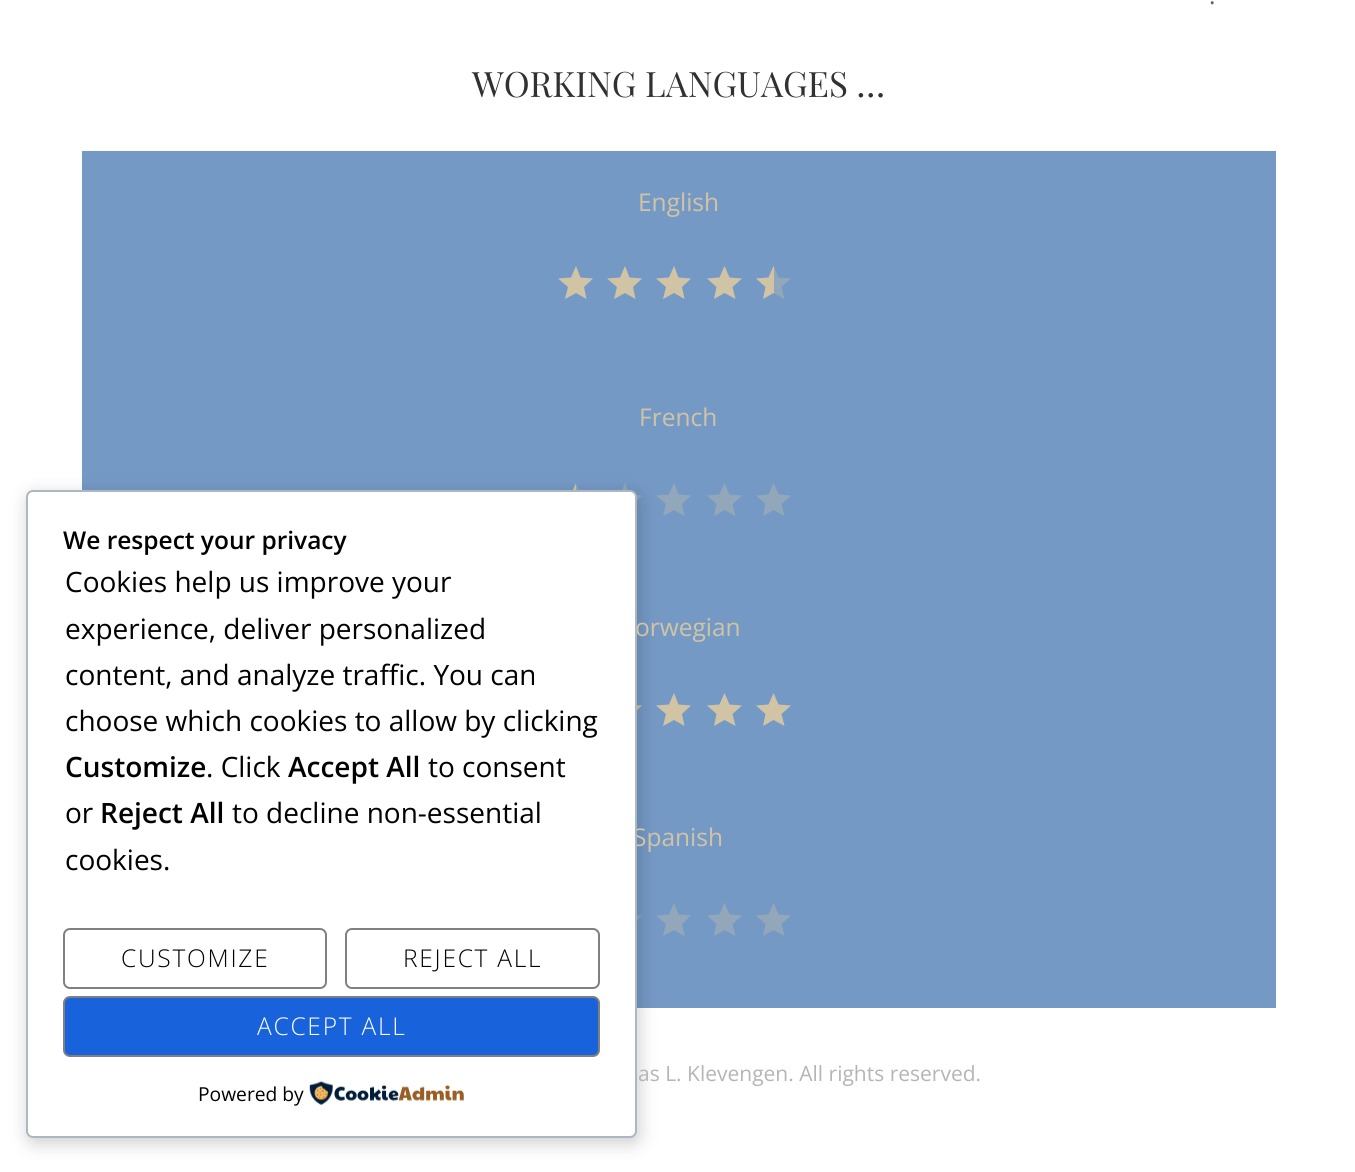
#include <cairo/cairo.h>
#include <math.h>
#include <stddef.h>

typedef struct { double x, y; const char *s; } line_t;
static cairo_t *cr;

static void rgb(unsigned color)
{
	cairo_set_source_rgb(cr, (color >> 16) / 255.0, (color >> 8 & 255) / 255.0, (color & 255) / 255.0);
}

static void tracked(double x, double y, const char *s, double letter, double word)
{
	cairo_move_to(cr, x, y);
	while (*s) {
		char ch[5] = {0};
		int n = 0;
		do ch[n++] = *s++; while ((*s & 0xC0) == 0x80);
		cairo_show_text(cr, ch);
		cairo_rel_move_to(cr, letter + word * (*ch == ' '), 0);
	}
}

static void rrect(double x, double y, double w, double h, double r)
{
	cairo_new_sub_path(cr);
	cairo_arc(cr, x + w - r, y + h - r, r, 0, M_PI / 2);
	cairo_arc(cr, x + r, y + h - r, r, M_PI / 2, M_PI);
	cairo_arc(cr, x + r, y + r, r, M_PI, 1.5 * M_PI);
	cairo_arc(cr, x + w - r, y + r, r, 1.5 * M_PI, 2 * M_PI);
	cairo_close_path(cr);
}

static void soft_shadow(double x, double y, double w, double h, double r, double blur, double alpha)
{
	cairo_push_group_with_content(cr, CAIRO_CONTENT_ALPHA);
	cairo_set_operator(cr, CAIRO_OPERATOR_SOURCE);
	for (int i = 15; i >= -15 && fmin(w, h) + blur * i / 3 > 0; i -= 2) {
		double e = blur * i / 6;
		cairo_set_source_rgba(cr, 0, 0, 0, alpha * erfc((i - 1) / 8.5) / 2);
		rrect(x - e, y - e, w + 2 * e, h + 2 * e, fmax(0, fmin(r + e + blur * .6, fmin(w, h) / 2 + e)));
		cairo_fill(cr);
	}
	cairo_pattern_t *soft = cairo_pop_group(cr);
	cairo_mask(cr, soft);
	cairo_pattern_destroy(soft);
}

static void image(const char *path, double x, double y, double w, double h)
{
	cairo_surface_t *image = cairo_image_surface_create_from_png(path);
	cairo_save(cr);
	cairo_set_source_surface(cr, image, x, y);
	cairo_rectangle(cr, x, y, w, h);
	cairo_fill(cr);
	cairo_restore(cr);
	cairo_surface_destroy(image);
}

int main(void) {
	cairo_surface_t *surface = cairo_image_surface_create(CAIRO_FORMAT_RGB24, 1355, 1172);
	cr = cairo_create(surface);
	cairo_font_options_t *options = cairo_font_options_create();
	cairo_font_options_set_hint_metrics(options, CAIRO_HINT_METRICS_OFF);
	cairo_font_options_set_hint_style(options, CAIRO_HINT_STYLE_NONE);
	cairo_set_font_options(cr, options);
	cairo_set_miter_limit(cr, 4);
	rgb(0xffffff);
	cairo_paint(cr);
	rgb(0x7599c5);
	cairo_rectangle(cr, 82, 151, 1194, 857);
	cairo_fill(cr);
	cairo_save(cr);
	cairo_rectangle(cr, 555, 480, 21, 42);
	cairo_clip(cr);
	rgb(0xd1c4a5);
	cairo_new_path(cr);
	cairo_move_to(cr, 576, 510);
	cairo_line_to(cr, 586.5, 516);
	cairo_line_to(cr, 584, 504);
	cairo_line_to(cr, 593, 495.5);
	cairo_line_to(cr, 580.5, 494.5);
	cairo_line_to(cr, 576, 483);
	cairo_line_to(cr, 571, 494.5);
	cairo_line_to(cr, 558, 495.5);
	cairo_line_to(cr, 568, 504);
	cairo_line_to(cr, 565, 516);
	cairo_close_path(cr);
	cairo_fill(cr);
	cairo_restore(cr);
	cairo_save(cr);
	cairo_rectangle(cr, 576, 480, 21, 42);
	cairo_clip(cr);
	rgb(0x93a7ba);
	cairo_new_path(cr);
	cairo_move_to(cr, 576, 510);
	cairo_line_to(cr, 586.5, 516);
	cairo_line_to(cr, 584, 504);
	cairo_line_to(cr, 593, 495.5);
	cairo_line_to(cr, 580.5, 494.5);
	cairo_line_to(cr, 576, 483);
	cairo_line_to(cr, 571, 494.5);
	cairo_line_to(cr, 558, 495.5);
	cairo_line_to(cr, 568, 504);
	cairo_line_to(cr, 565, 516);
	cairo_close_path(cr);
	cairo_fill(cr);
	cairo_restore(cr);
	cairo_save(cr);
	cairo_rectangle(cr, 604, 480, 21, 42);
	cairo_clip(cr);
	rgb(0x93a7ba);
	cairo_new_path(cr);
	cairo_move_to(cr, 625, 510);
	cairo_line_to(cr, 635.5, 516);
	cairo_line_to(cr, 633, 504);
	cairo_line_to(cr, 642, 495.5);
	cairo_line_to(cr, 629.5, 494.5);
	cairo_line_to(cr, 625, 483);
	cairo_line_to(cr, 620, 494.5);
	cairo_line_to(cr, 607, 495.5);
	cairo_line_to(cr, 617, 504);
	cairo_line_to(cr, 614, 516);
	cairo_close_path(cr);
	cairo_fill(cr);
	cairo_restore(cr);
	cairo_save(cr);
	cairo_rectangle(cr, 625, 480, 21, 42);
	cairo_clip(cr);
	rgb(0x93a7ba);
	cairo_new_path(cr);
	cairo_move_to(cr, 625, 510);
	cairo_line_to(cr, 635.5, 516);
	cairo_line_to(cr, 633, 504);
	cairo_line_to(cr, 642, 495.5);
	cairo_line_to(cr, 629.5, 494.5);
	cairo_line_to(cr, 625, 483);
	cairo_line_to(cr, 620, 494.5);
	cairo_line_to(cr, 607, 495.5);
	cairo_line_to(cr, 617, 504);
	cairo_line_to(cr, 614, 516);
	cairo_close_path(cr);
	cairo_fill(cr);
	cairo_restore(cr);
	cairo_save(cr);
	cairo_rectangle(cr, 653, 480, 21, 42);
	cairo_clip(cr);
	rgb(0x93a7ba);
	cairo_new_path(cr);
	cairo_move_to(cr, 674, 510);
	cairo_line_to(cr, 684.5, 516);
	cairo_line_to(cr, 682, 504);
	cairo_line_to(cr, 691, 495.5);
	cairo_line_to(cr, 678.5, 494.5);
	cairo_line_to(cr, 674, 483);
	cairo_line_to(cr, 669, 494.5);
	cairo_line_to(cr, 656, 495.5);
	cairo_line_to(cr, 666, 504);
	cairo_line_to(cr, 663, 516);
	cairo_close_path(cr);
	cairo_fill(cr);
	cairo_restore(cr);
	rgb(0xd1c4a5);
	cairo_new_path(cr);
	cairo_move_to(cr, 625, 720);
	cairo_line_to(cr, 635.5, 726);
	cairo_line_to(cr, 633, 714);
	cairo_line_to(cr, 642, 705.5);
	cairo_line_to(cr, 629.5, 704.5);
	cairo_line_to(cr, 625, 693);
	cairo_line_to(cr, 620, 704.5);
	cairo_line_to(cr, 607, 705.5);
	cairo_line_to(cr, 617, 714);
	cairo_line_to(cr, 614, 726);
	cairo_close_path(cr);
	cairo_fill(cr);
	cairo_save(cr);
	cairo_rectangle(cr, 653, 690, 21, 42);
	cairo_clip(cr);
	cairo_new_path(cr);
	cairo_move_to(cr, 674, 720);
	cairo_line_to(cr, 684.5, 726);
	cairo_line_to(cr, 682, 714);
	cairo_line_to(cr, 691, 705.5);
	cairo_line_to(cr, 678.5, 704.5);
	cairo_line_to(cr, 674, 693);
	cairo_line_to(cr, 669, 704.5);
	cairo_line_to(cr, 656, 705.5);
	cairo_line_to(cr, 666, 714);
	cairo_line_to(cr, 663, 726);
	cairo_close_path(cr);
	cairo_fill(cr);
	cairo_restore(cr);
	rgb(0x93a7ba);
	cairo_new_path(cr);
	cairo_move_to(cr, 625, 930);
	cairo_line_to(cr, 635.5, 936);
	cairo_line_to(cr, 633, 924);
	cairo_line_to(cr, 642, 915.5);
	cairo_line_to(cr, 629.5, 914.5);
	cairo_line_to(cr, 625, 903);
	cairo_line_to(cr, 620, 914.5);
	cairo_line_to(cr, 607, 915.5);
	cairo_line_to(cr, 617, 924);
	cairo_line_to(cr, 614, 936);
	cairo_close_path(cr);
	cairo_fill(cr);
	cairo_save(cr);
	cairo_rectangle(cr, 653, 900, 21, 42);
	cairo_clip(cr);
	cairo_new_path(cr);
	cairo_move_to(cr, 674, 930);
	cairo_line_to(cr, 684.5, 936);
	cairo_line_to(cr, 682, 924);
	cairo_line_to(cr, 691, 915.5);
	cairo_line_to(cr, 678.5, 914.5);
	cairo_line_to(cr, 674, 903);
	cairo_line_to(cr, 669, 914.5);
	cairo_line_to(cr, 656, 915.5);
	cairo_line_to(cr, 666, 924);
	cairo_line_to(cr, 663, 936);
	cairo_close_path(cr);
	cairo_fill(cr);
	cairo_restore(cr);
	rgb(0x000000);
	soft_shadow(28, 495, 611, 648, 7, 9, 0.2);
	cairo_save(cr);
	cairo_rectangle(cr, 555, 263, 21, 42);
	cairo_clip(cr);
	rgb(0xd1c4a5);
	cairo_new_path(cr);
	cairo_move_to(cr, 576, 293);
	cairo_line_to(cr, 586.5, 299);
	cairo_line_to(cr, 584, 287);
	cairo_line_to(cr, 593, 278.5);
	cairo_line_to(cr, 580.5, 277.5);
	cairo_line_to(cr, 576, 266);
	cairo_line_to(cr, 571, 277.5);
	cairo_line_to(cr, 558, 278.5);
	cairo_line_to(cr, 568, 287);
	cairo_line_to(cr, 565, 299);
	cairo_close_path(cr);
	cairo_fill(cr);
	cairo_restore(cr);
	cairo_save(cr);
	cairo_rectangle(cr, 576, 263, 21, 42);
	cairo_clip(cr);
	rgb(0xd1c4a5);
	cairo_new_path(cr);
	cairo_move_to(cr, 576, 293);
	cairo_line_to(cr, 586.5, 299);
	cairo_line_to(cr, 584, 287);
	cairo_line_to(cr, 593, 278.5);
	cairo_line_to(cr, 580.5, 277.5);
	cairo_line_to(cr, 576, 266);
	cairo_line_to(cr, 571, 277.5);
	cairo_line_to(cr, 558, 278.5);
	cairo_line_to(cr, 568, 287);
	cairo_line_to(cr, 565, 299);
	cairo_close_path(cr);
	cairo_fill(cr);
	cairo_restore(cr);
	cairo_save(cr);
	cairo_rectangle(cr, 604, 263, 21, 42);
	cairo_clip(cr);
	rgb(0xd1c4a5);
	cairo_new_path(cr);
	cairo_move_to(cr, 625, 293);
	cairo_line_to(cr, 635.5, 299);
	cairo_line_to(cr, 633, 287);
	cairo_line_to(cr, 642, 278.5);
	cairo_line_to(cr, 629.5, 277.5);
	cairo_line_to(cr, 625, 266);
	cairo_line_to(cr, 620, 277.5);
	cairo_line_to(cr, 607, 278.5);
	cairo_line_to(cr, 617, 287);
	cairo_line_to(cr, 614, 299);
	cairo_close_path(cr);
	cairo_fill(cr);
	cairo_restore(cr);
	cairo_save(cr);
	cairo_rectangle(cr, 625, 263, 21, 42);
	cairo_clip(cr);
	rgb(0xd1c4a5);
	cairo_new_path(cr);
	cairo_move_to(cr, 625, 293);
	cairo_line_to(cr, 635.5, 299);
	cairo_line_to(cr, 633, 287);
	cairo_line_to(cr, 642, 278.5);
	cairo_line_to(cr, 629.5, 277.5);
	cairo_line_to(cr, 625, 266);
	cairo_line_to(cr, 620, 277.5);
	cairo_line_to(cr, 607, 278.5);
	cairo_line_to(cr, 617, 287);
	cairo_line_to(cr, 614, 299);
	cairo_close_path(cr);
	cairo_fill(cr);
	cairo_restore(cr);
	cairo_save(cr);
	cairo_rectangle(cr, 653, 263, 21, 42);
	cairo_clip(cr);
	rgb(0xd1c4a5);
	cairo_new_path(cr);
	cairo_move_to(cr, 674, 293);
	cairo_line_to(cr, 684.5, 299);
	cairo_line_to(cr, 682, 287);
	cairo_line_to(cr, 691, 278.5);
	cairo_line_to(cr, 678.5, 277.5);
	cairo_line_to(cr, 674, 266);
	cairo_line_to(cr, 669, 277.5);
	cairo_line_to(cr, 656, 278.5);
	cairo_line_to(cr, 666, 287);
	cairo_line_to(cr, 663, 299);
	cairo_close_path(cr);
	cairo_fill(cr);
	cairo_restore(cr);
	cairo_save(cr);
	cairo_rectangle(cr, 674, 263, 21, 42);
	cairo_clip(cr);
	rgb(0xd1c4a5);
	cairo_new_path(cr);
	cairo_move_to(cr, 674, 293);
	cairo_line_to(cr, 684.5, 299);
	cairo_line_to(cr, 682, 287);
	cairo_line_to(cr, 691, 278.5);
	cairo_line_to(cr, 678.5, 277.5);
	cairo_line_to(cr, 674, 266);
	cairo_line_to(cr, 669, 277.5);
	cairo_line_to(cr, 656, 278.5);
	cairo_line_to(cr, 666, 287);
	cairo_line_to(cr, 663, 299);
	cairo_close_path(cr);
	cairo_fill(cr);
	cairo_restore(cr);
	cairo_save(cr);
	cairo_rectangle(cr, 704, 263, 21, 42);
	cairo_clip(cr);
	rgb(0xd1c4a5);
	cairo_new_path(cr);
	cairo_move_to(cr, 724.5, 293);
	cairo_line_to(cr, 735.5, 299);
	cairo_line_to(cr, 732.5, 287);
	cairo_line_to(cr, 742, 278.5);
	cairo_line_to(cr, 729.5, 277.5);
	cairo_line_to(cr, 724.5, 266);
	cairo_line_to(cr, 719.5, 277.5);
	cairo_line_to(cr, 707, 278.5);
	cairo_line_to(cr, 716.5, 287);
	cairo_line_to(cr, 714, 299);
	cairo_close_path(cr);
	cairo_fill(cr);
	cairo_restore(cr);
	cairo_save(cr);
	cairo_rectangle(cr, 725, 263, 21, 42);
	cairo_clip(cr);
	rgb(0xd1c4a5);
	cairo_new_path(cr);
	cairo_move_to(cr, 724.5, 293);
	cairo_line_to(cr, 735.5, 299);
	cairo_line_to(cr, 732.5, 287);
	cairo_line_to(cr, 742, 278.5);
	cairo_line_to(cr, 729.5, 277.5);
	cairo_line_to(cr, 724.5, 266);
	cairo_line_to(cr, 719.5, 277.5);
	cairo_line_to(cr, 707, 278.5);
	cairo_line_to(cr, 716.5, 287);
	cairo_line_to(cr, 714, 299);
	cairo_close_path(cr);
	cairo_fill(cr);
	cairo_restore(cr);
	cairo_save(cr);
	cairo_rectangle(cr, 753, 263, 21, 42);
	cairo_clip(cr);
	rgb(0xd1c4a5);
	cairo_new_path(cr);
	cairo_move_to(cr, 773.5, 293);
	cairo_line_to(cr, 784.5, 299);
	cairo_line_to(cr, 781.5, 287);
	cairo_line_to(cr, 791, 278.5);
	cairo_line_to(cr, 778.5, 277.5);
	cairo_line_to(cr, 773.5, 266);
	cairo_line_to(cr, 768.5, 277.5);
	cairo_line_to(cr, 756, 278.5);
	cairo_line_to(cr, 765.5, 287);
	cairo_line_to(cr, 763, 299);
	cairo_close_path(cr);
	cairo_fill(cr);
	cairo_restore(cr);
	cairo_save(cr);
	cairo_rectangle(cr, 774, 263, 21, 42);
	cairo_clip(cr);
	rgb(0x93a7ba);
	cairo_new_path(cr);
	cairo_move_to(cr, 773.5, 293);
	cairo_line_to(cr, 784.5, 299);
	cairo_line_to(cr, 781.5, 287);
	cairo_line_to(cr, 791, 278.5);
	cairo_line_to(cr, 778.5, 277.5);
	cairo_line_to(cr, 773.5, 266);
	cairo_line_to(cr, 768.5, 277.5);
	cairo_line_to(cr, 756, 278.5);
	cairo_line_to(cr, 765.5, 287);
	cairo_line_to(cr, 763, 299);
	cairo_close_path(cr);
	cairo_fill(cr);
	cairo_restore(cr);
	cairo_save(cr);
	cairo_rectangle(cr, 674, 480, 21, 42);
	cairo_clip(cr);
	rgb(0x93a7ba);
	cairo_new_path(cr);
	cairo_move_to(cr, 674, 510);
	cairo_line_to(cr, 684.5, 516);
	cairo_line_to(cr, 682, 504);
	cairo_line_to(cr, 691, 495.5);
	cairo_line_to(cr, 678.5, 494.5);
	cairo_line_to(cr, 674, 483);
	cairo_line_to(cr, 669, 494.5);
	cairo_line_to(cr, 656, 495.5);
	cairo_line_to(cr, 666, 504);
	cairo_line_to(cr, 663, 516);
	cairo_close_path(cr);
	cairo_fill(cr);
	cairo_restore(cr);
	cairo_save(cr);
	cairo_rectangle(cr, 704, 480, 21, 42);
	cairo_clip(cr);
	rgb(0x93a7ba);
	cairo_new_path(cr);
	cairo_move_to(cr, 724.5, 510);
	cairo_line_to(cr, 735.5, 516);
	cairo_line_to(cr, 732.5, 504);
	cairo_line_to(cr, 742, 495.5);
	cairo_line_to(cr, 729.5, 494.5);
	cairo_line_to(cr, 724.5, 483);
	cairo_line_to(cr, 719.5, 494.5);
	cairo_line_to(cr, 707, 495.5);
	cairo_line_to(cr, 716.5, 504);
	cairo_line_to(cr, 714, 516);
	cairo_close_path(cr);
	cairo_fill(cr);
	cairo_restore(cr);
	cairo_save(cr);
	cairo_rectangle(cr, 725, 480, 21, 42);
	cairo_clip(cr);
	rgb(0x93a7ba);
	cairo_new_path(cr);
	cairo_move_to(cr, 724.5, 510);
	cairo_line_to(cr, 735.5, 516);
	cairo_line_to(cr, 732.5, 504);
	cairo_line_to(cr, 742, 495.5);
	cairo_line_to(cr, 729.5, 494.5);
	cairo_line_to(cr, 724.5, 483);
	cairo_line_to(cr, 719.5, 494.5);
	cairo_line_to(cr, 707, 495.5);
	cairo_line_to(cr, 716.5, 504);
	cairo_line_to(cr, 714, 516);
	cairo_close_path(cr);
	cairo_fill(cr);
	cairo_restore(cr);
	cairo_save(cr);
	cairo_rectangle(cr, 753, 480, 21, 42);
	cairo_clip(cr);
	rgb(0x93a7ba);
	cairo_new_path(cr);
	cairo_move_to(cr, 773.5, 510);
	cairo_line_to(cr, 784.5, 516);
	cairo_line_to(cr, 781.5, 504);
	cairo_line_to(cr, 791, 495.5);
	cairo_line_to(cr, 778.5, 494.5);
	cairo_line_to(cr, 773.5, 483);
	cairo_line_to(cr, 768.5, 494.5);
	cairo_line_to(cr, 756, 495.5);
	cairo_line_to(cr, 765.5, 504);
	cairo_line_to(cr, 763, 516);
	cairo_close_path(cr);
	cairo_fill(cr);
	cairo_restore(cr);
	cairo_save(cr);
	cairo_rectangle(cr, 774, 480, 21, 42);
	cairo_clip(cr);
	rgb(0x93a7ba);
	cairo_new_path(cr);
	cairo_move_to(cr, 773.5, 510);
	cairo_line_to(cr, 784.5, 516);
	cairo_line_to(cr, 781.5, 504);
	cairo_line_to(cr, 791, 495.5);
	cairo_line_to(cr, 778.5, 494.5);
	cairo_line_to(cr, 773.5, 483);
	cairo_line_to(cr, 768.5, 494.5);
	cairo_line_to(cr, 756, 495.5);
	cairo_line_to(cr, 765.5, 504);
	cairo_line_to(cr, 763, 516);
	cairo_close_path(cr);
	cairo_fill(cr);
	cairo_restore(cr);
	cairo_save(cr);
	cairo_rectangle(cr, 674, 690, 21, 42);
	cairo_clip(cr);
	rgb(0xd1c4a5);
	cairo_new_path(cr);
	cairo_move_to(cr, 674, 720);
	cairo_line_to(cr, 684.5, 726);
	cairo_line_to(cr, 682, 714);
	cairo_line_to(cr, 691, 705.5);
	cairo_line_to(cr, 678.5, 704.5);
	cairo_line_to(cr, 674, 693);
	cairo_line_to(cr, 669, 704.5);
	cairo_line_to(cr, 656, 705.5);
	cairo_line_to(cr, 666, 714);
	cairo_line_to(cr, 663, 726);
	cairo_close_path(cr);
	cairo_fill(cr);
	cairo_restore(cr);
	cairo_save(cr);
	cairo_rectangle(cr, 704, 690, 21, 42);
	cairo_clip(cr);
	rgb(0xd1c4a5);
	cairo_new_path(cr);
	cairo_move_to(cr, 724.5, 720);
	cairo_line_to(cr, 735.5, 726);
	cairo_line_to(cr, 732.5, 714);
	cairo_line_to(cr, 742, 705.5);
	cairo_line_to(cr, 729.5, 704.5);
	cairo_line_to(cr, 724.5, 693);
	cairo_line_to(cr, 719.5, 704.5);
	cairo_line_to(cr, 707, 705.5);
	cairo_line_to(cr, 716.5, 714);
	cairo_line_to(cr, 714, 726);
	cairo_close_path(cr);
	cairo_fill(cr);
	cairo_restore(cr);
	cairo_save(cr);
	cairo_rectangle(cr, 725, 690, 21, 42);
	cairo_clip(cr);
	rgb(0xd1c4a5);
	cairo_new_path(cr);
	cairo_move_to(cr, 724.5, 720);
	cairo_line_to(cr, 735.5, 726);
	cairo_line_to(cr, 732.5, 714);
	cairo_line_to(cr, 742, 705.5);
	cairo_line_to(cr, 729.5, 704.5);
	cairo_line_to(cr, 724.5, 693);
	cairo_line_to(cr, 719.5, 704.5);
	cairo_line_to(cr, 707, 705.5);
	cairo_line_to(cr, 716.5, 714);
	cairo_line_to(cr, 714, 726);
	cairo_close_path(cr);
	cairo_fill(cr);
	cairo_restore(cr);
	cairo_save(cr);
	cairo_rectangle(cr, 753, 690, 21, 42);
	cairo_clip(cr);
	rgb(0xd1c4a5);
	cairo_new_path(cr);
	cairo_move_to(cr, 773.5, 720);
	cairo_line_to(cr, 784.5, 726);
	cairo_line_to(cr, 781.5, 714);
	cairo_line_to(cr, 791, 705.5);
	cairo_line_to(cr, 778.5, 704.5);
	cairo_line_to(cr, 773.5, 693);
	cairo_line_to(cr, 768.5, 704.5);
	cairo_line_to(cr, 756, 705.5);
	cairo_line_to(cr, 765.5, 714);
	cairo_line_to(cr, 763, 726);
	cairo_close_path(cr);
	cairo_fill(cr);
	cairo_restore(cr);
	cairo_save(cr);
	cairo_rectangle(cr, 774, 690, 21, 42);
	cairo_clip(cr);
	rgb(0xd1c4a5);
	cairo_new_path(cr);
	cairo_move_to(cr, 773.5, 720);
	cairo_line_to(cr, 784.5, 726);
	cairo_line_to(cr, 781.5, 714);
	cairo_line_to(cr, 791, 705.5);
	cairo_line_to(cr, 778.5, 704.5);
	cairo_line_to(cr, 773.5, 693);
	cairo_line_to(cr, 768.5, 704.5);
	cairo_line_to(cr, 756, 705.5);
	cairo_line_to(cr, 765.5, 714);
	cairo_line_to(cr, 763, 726);
	cairo_close_path(cr);
	cairo_fill(cr);
	cairo_restore(cr);
	cairo_save(cr);
	cairo_rectangle(cr, 674, 900, 21, 42);
	cairo_clip(cr);
	rgb(0x93a7ba);
	cairo_new_path(cr);
	cairo_move_to(cr, 674, 930);
	cairo_line_to(cr, 684.5, 936);
	cairo_line_to(cr, 682, 924);
	cairo_line_to(cr, 691, 915.5);
	cairo_line_to(cr, 678.5, 914.5);
	cairo_line_to(cr, 674, 903);
	cairo_line_to(cr, 669, 914.5);
	cairo_line_to(cr, 656, 915.5);
	cairo_line_to(cr, 666, 924);
	cairo_line_to(cr, 663, 936);
	cairo_close_path(cr);
	cairo_fill(cr);
	cairo_restore(cr);
	cairo_save(cr);
	cairo_rectangle(cr, 704, 900, 21, 42);
	cairo_clip(cr);
	rgb(0x93a7ba);
	cairo_new_path(cr);
	cairo_move_to(cr, 724.5, 930);
	cairo_line_to(cr, 735.5, 936);
	cairo_line_to(cr, 732.5, 924);
	cairo_line_to(cr, 742, 915.5);
	cairo_line_to(cr, 729.5, 914.5);
	cairo_line_to(cr, 724.5, 903);
	cairo_line_to(cr, 719.5, 914.5);
	cairo_line_to(cr, 707, 915.5);
	cairo_line_to(cr, 716.5, 924);
	cairo_line_to(cr, 714, 936);
	cairo_close_path(cr);
	cairo_fill(cr);
	cairo_restore(cr);
	cairo_save(cr);
	cairo_rectangle(cr, 725, 900, 21, 42);
	cairo_clip(cr);
	rgb(0x93a7ba);
	cairo_new_path(cr);
	cairo_move_to(cr, 724.5, 930);
	cairo_line_to(cr, 735.5, 936);
	cairo_line_to(cr, 732.5, 924);
	cairo_line_to(cr, 742, 915.5);
	cairo_line_to(cr, 729.5, 914.5);
	cairo_line_to(cr, 724.5, 903);
	cairo_line_to(cr, 719.5, 914.5);
	cairo_line_to(cr, 707, 915.5);
	cairo_line_to(cr, 716.5, 924);
	cairo_line_to(cr, 714, 936);
	cairo_close_path(cr);
	cairo_fill(cr);
	cairo_restore(cr);
	cairo_save(cr);
	cairo_rectangle(cr, 753, 900, 21, 42);
	cairo_clip(cr);
	rgb(0x93a7ba);
	cairo_new_path(cr);
	cairo_move_to(cr, 773.5, 930);
	cairo_line_to(cr, 784.5, 936);
	cairo_line_to(cr, 781.5, 924);
	cairo_line_to(cr, 791, 915.5);
	cairo_line_to(cr, 778.5, 914.5);
	cairo_line_to(cr, 773.5, 903);
	cairo_line_to(cr, 768.5, 914.5);
	cairo_line_to(cr, 756, 915.5);
	cairo_line_to(cr, 765.5, 924);
	cairo_line_to(cr, 763, 936);
	cairo_close_path(cr);
	cairo_fill(cr);
	cairo_restore(cr);
	cairo_save(cr);
	cairo_rectangle(cr, 774, 900, 21, 42);
	cairo_clip(cr);
	rgb(0x93a7ba);
	cairo_new_path(cr);
	cairo_move_to(cr, 773.5, 930);
	cairo_line_to(cr, 784.5, 936);
	cairo_line_to(cr, 781.5, 924);
	cairo_line_to(cr, 791, 915.5);
	cairo_line_to(cr, 778.5, 914.5);
	cairo_line_to(cr, 773.5, 903);
	cairo_line_to(cr, 768.5, 914.5);
	cairo_line_to(cr, 756, 915.5);
	cairo_line_to(cr, 765.5, 924);
	cairo_line_to(cr, 763, 936);
	cairo_close_path(cr);
	cairo_fill(cr);
	cairo_restore(cr);
	cairo_select_font_face(cr, "Open Sans", CAIRO_FONT_SLANT_NORMAL, CAIRO_FONT_WEIGHT_NORMAL);
	cairo_set_font_size(cr, 24.5);
	rgb(0x616161);
	cairo_move_to(cr, 1209, 4);
	cairo_show_text(cr, ".");
	cairo_select_font_face(cr, "Playfair Display", CAIRO_FONT_SLANT_NORMAL, CAIRO_FONT_WEIGHT_NORMAL);
	cairo_set_font_size(cr, 35);
	rgb(0x313131);
	cairo_move_to(cr, 472, 97);
	cairo_show_text(cr, "WORKING LANGUAGES …");
	cairo_select_font_face(cr, "Open Sans", CAIRO_FONT_SLANT_NORMAL, CAIRO_FONT_WEIGHT_NORMAL);
	cairo_set_font_size(cr, 24.5);
	rgb(0xd1c4a5);
	{
		static const line_t items[] = {
			{638, 211, "English"},
			{639, 426, "French"},
			{635, 636, "orwegian"},
			{633, 846, "Spanish"},
		};
		for (size_t i = 0; i < sizeof items / sizeof *items; i++) {
			cairo_move_to(cr, items[i].x, items[i].y);
			cairo_show_text(cr, items[i].s);
		}
	}
	rgb(0xffffff);
	rrect(27, 491, 609, 646, 6);
	cairo_fill_preserve(cr);
	rgb(0xabb8c3);
	cairo_stroke(cr);
	image("img/1.png", 309, 1081, 155, 24);
	cairo_set_font_size(cr, 19.25);
	rgb(0x000000);
	cairo_move_to(cr, 198, 1101);
	cairo_show_text(cr, "Powered by");
	rgb(0x1863dc);
	rrect(64, 997, 535, 59, 6);
	cairo_fill_preserve(cr);
	rgb(0x808080);
	cairo_stroke(cr);
	cairo_select_font_face(cr, "Open Sans Light", CAIRO_FONT_SLANT_NORMAL, CAIRO_FONT_WEIGHT_NORMAL);
	cairo_set_font_size(cr, 24.5);
	rgb(0xffffff);
	tracked(257, 1035, "ACCEPT ALL", 1.75, 0);
	rrect(346, 929, 253, 59, 6);
	rgb(0x808080);
	cairo_stroke(cr);
	rgb(0x000000);
	tracked(403, 967, "REJECT ALL", 1.75, 0);
	rrect(64, 929, 262, 59, 6);
	rgb(0x808080);
	cairo_stroke(cr);
	rgb(0x000000);
	tracked(121, 967, "CUSTOMIZE", 1.75, 0);
	cairo_select_font_face(cr, "Open Sans", CAIRO_FONT_SLANT_NORMAL, CAIRO_FONT_WEIGHT_NORMAL);
	cairo_set_font_size(cr, 28);
	cairo_move_to(cr, 65, 870);
	cairo_show_text(cr, "cookies.");
	cairo_move_to(cr, 232, 823);
	cairo_show_text(cr, "to decline non-essential");
	cairo_select_font_face(cr, "Open Sans SemiBold", CAIRO_FONT_SLANT_NORMAL, CAIRO_FONT_WEIGHT_NORMAL);
	cairo_move_to(cr, 100, 823);
	cairo_show_text(cr, "Reject All");
	cairo_select_font_face(cr, "Open Sans", CAIRO_FONT_SLANT_NORMAL, CAIRO_FONT_WEIGHT_NORMAL);
	cairo_move_to(cr, 65, 823);
	cairo_show_text(cr, "or");
	cairo_move_to(cr, 428, 777);
	cairo_show_text(cr, "to consent");
	cairo_select_font_face(cr, "Open Sans SemiBold", CAIRO_FONT_SLANT_NORMAL, CAIRO_FONT_WEIGHT_NORMAL);
	cairo_move_to(cr, 288, 777);
	cairo_show_text(cr, "Accept All");
	cairo_select_font_face(cr, "Open Sans", CAIRO_FONT_SLANT_NORMAL, CAIRO_FONT_WEIGHT_NORMAL);
	cairo_move_to(cr, 206, 777);
	cairo_show_text(cr, ". Click");
	cairo_select_font_face(cr, "Open Sans SemiBold", CAIRO_FONT_SLANT_NORMAL, CAIRO_FONT_WEIGHT_NORMAL);
	cairo_move_to(cr, 65, 777);
	cairo_show_text(cr, "Customize");
	cairo_select_font_face(cr, "Open Sans", CAIRO_FONT_SLANT_NORMAL, CAIRO_FONT_WEIGHT_NORMAL);
	{
		static const line_t items[] = {
			{65, 731, "choose which cookies to allow by clicking"},
			{65, 685, "content, and analyze traffic. You can"},
			{65, 639, "experience, deliver personalized"},
			{65, 592, "Cookies help us improve your"},
		};
		for (size_t i = 0; i < sizeof items / sizeof *items; i++) {
			cairo_move_to(cr, items[i].x, items[i].y);
			cairo_show_text(cr, items[i].s);
		}
	}
	cairo_select_font_face(cr, "Open Sans SemiBold", CAIRO_FONT_SLANT_NORMAL, CAIRO_FONT_WEIGHT_NORMAL);
	cairo_set_font_size(cr, 24.5);
	cairo_move_to(cr, 63, 549);
	cairo_show_text(cr, "We respect your privacy");
	cairo_select_font_face(cr, "Open Sans", CAIRO_FONT_SLANT_NORMAL, CAIRO_FONT_WEIGHT_NORMAL);
	cairo_set_font_size(cr, 21);
	rgb(0xb5b5b5);
	cairo_move_to(cr, 638, 1081);
	cairo_show_text(cr, "as L. Klevengen. All rights reserved.");
	cairo_surface_write_to_png(surface, "page.png");
	cairo_font_options_destroy(options);
	cairo_destroy(cr);
	cairo_surface_destroy(surface);
	return 0;
}
